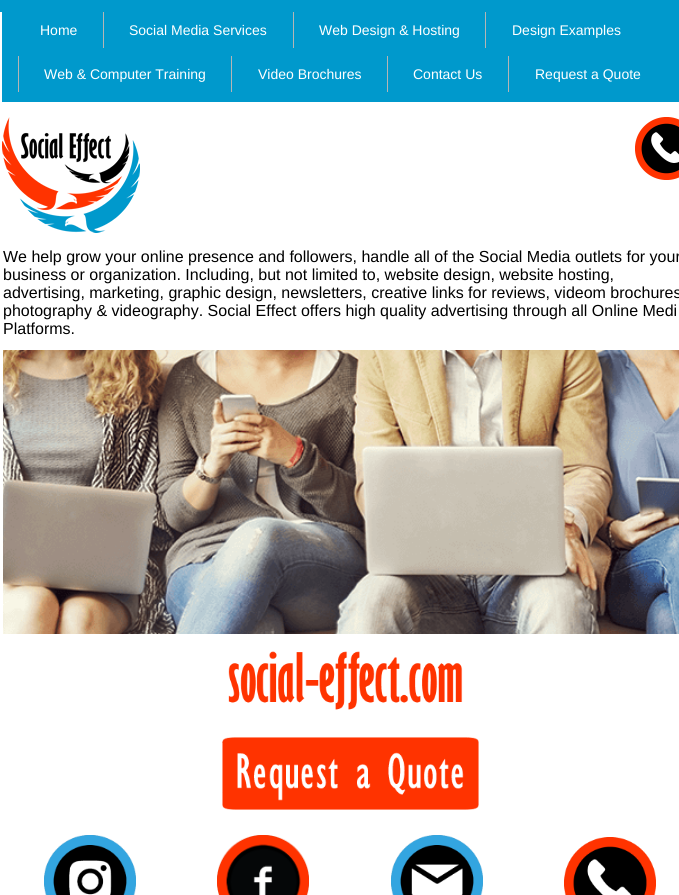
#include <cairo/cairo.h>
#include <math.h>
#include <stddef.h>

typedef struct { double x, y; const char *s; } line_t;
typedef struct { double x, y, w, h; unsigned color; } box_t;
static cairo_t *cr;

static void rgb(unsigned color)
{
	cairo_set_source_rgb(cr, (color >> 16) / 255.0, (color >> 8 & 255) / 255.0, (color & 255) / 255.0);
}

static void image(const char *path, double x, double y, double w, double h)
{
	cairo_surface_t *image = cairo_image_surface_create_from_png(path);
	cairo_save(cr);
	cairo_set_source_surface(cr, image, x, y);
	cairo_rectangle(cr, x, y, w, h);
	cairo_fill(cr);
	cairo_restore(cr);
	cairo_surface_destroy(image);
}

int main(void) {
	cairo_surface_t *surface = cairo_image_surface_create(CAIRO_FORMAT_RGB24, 679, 895);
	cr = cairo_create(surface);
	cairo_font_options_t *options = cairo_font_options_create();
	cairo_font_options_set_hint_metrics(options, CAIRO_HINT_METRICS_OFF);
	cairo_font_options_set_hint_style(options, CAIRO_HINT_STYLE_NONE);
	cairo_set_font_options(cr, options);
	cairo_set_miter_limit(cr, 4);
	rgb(0xffffff);
	cairo_paint(cr);
	{
		static const box_t items[] = {
			{0, 0, 679, 12, 0x0099cc},
			{2, 12, 677, 90, 0x0099cc},
			{103, 12, 1, 36, 0xb5b5b5},
			{293, 12, 1, 36, 0xb5b5b5},
			{485, 12, 1, 36, 0xb5b5b5},
			{18, 56, 1, 36, 0xb5b5b5},
			{231, 56, 1, 36, 0xb5b5b5},
			{387, 56, 1, 36, 0xb5b5b5},
			{508, 56, 1, 36, 0xb5b5b5},
		};
		for (size_t i = 0; i < sizeof items / sizeof *items; i++) {
			rgb(items[i].color);
			cairo_rectangle(cr, items[i].x, items[i].y, items[i].w, items[i].h);
			cairo_fill(cr);
		}
	}
	image("img/1.png", 2, 117, 138, 116);
	image("img/2.png", 635, 117, 44, 63);
	image("img/3.png", 3, 350, 676, 284);
	image("img/4.png", 228, 651, 235, 59);
	image("img/5.png", 222, 737, 257, 73);
	image("img/6.png", 44, 835, 92, 60);
	image("img/7.png", 217, 835, 92, 60);
	image("img/8.png", 391, 835, 92, 60);
	image("img/9.png", 564, 837, 92, 58);
	cairo_select_font_face(cr, "Liberation Sans", CAIRO_FONT_SLANT_NORMAL, CAIRO_FONT_WEIGHT_NORMAL);
	cairo_set_font_size(cr, 14);
	rgb(0xffffff);
	{
		static const line_t items[] = {
			{40, 35, "Home"},
			{129, 35, "Social Media Services"},
			{319, 35, "Web Design & Hosting"},
			{512, 35, "Design Examples"},
			{44, 79, "Web & Computer Training"},
			{258, 79, "Video Brochures"},
			{413, 79, "Contact Us"},
			{535, 79, "Request a Quote"},
		};
		for (size_t i = 0; i < sizeof items / sizeof *items; i++) {
			cairo_move_to(cr, items[i].x, items[i].y);
			cairo_show_text(cr, items[i].s);
		}
	}
	cairo_set_font_size(cr, 16);
	rgb(0x000000);
	{
		static const line_t items[] = {
			{3, 262, "We help grow your online presence and followers, handle all of the Social Media outlets for your"},
			{3, 280, "business or organization. Including, but not limited to, website design, website hosting,"},
			{3, 298, "advertising, marketing, graphic design, newsletters, creative links for reviews, videom brochures"},
			{3, 316, "photography & videography. Social Effect offers high quality advertising through all Online Medi"},
			{3, 334, "Platforms."},
		};
		for (size_t i = 0; i < sizeof items / sizeof *items; i++) {
			cairo_move_to(cr, items[i].x, items[i].y);
			cairo_show_text(cr, items[i].s);
		}
	}
	cairo_surface_write_to_png(surface, "page.png");
	cairo_font_options_destroy(options);
	cairo_destroy(cr);
	cairo_surface_destroy(surface);
	return 0;
}
